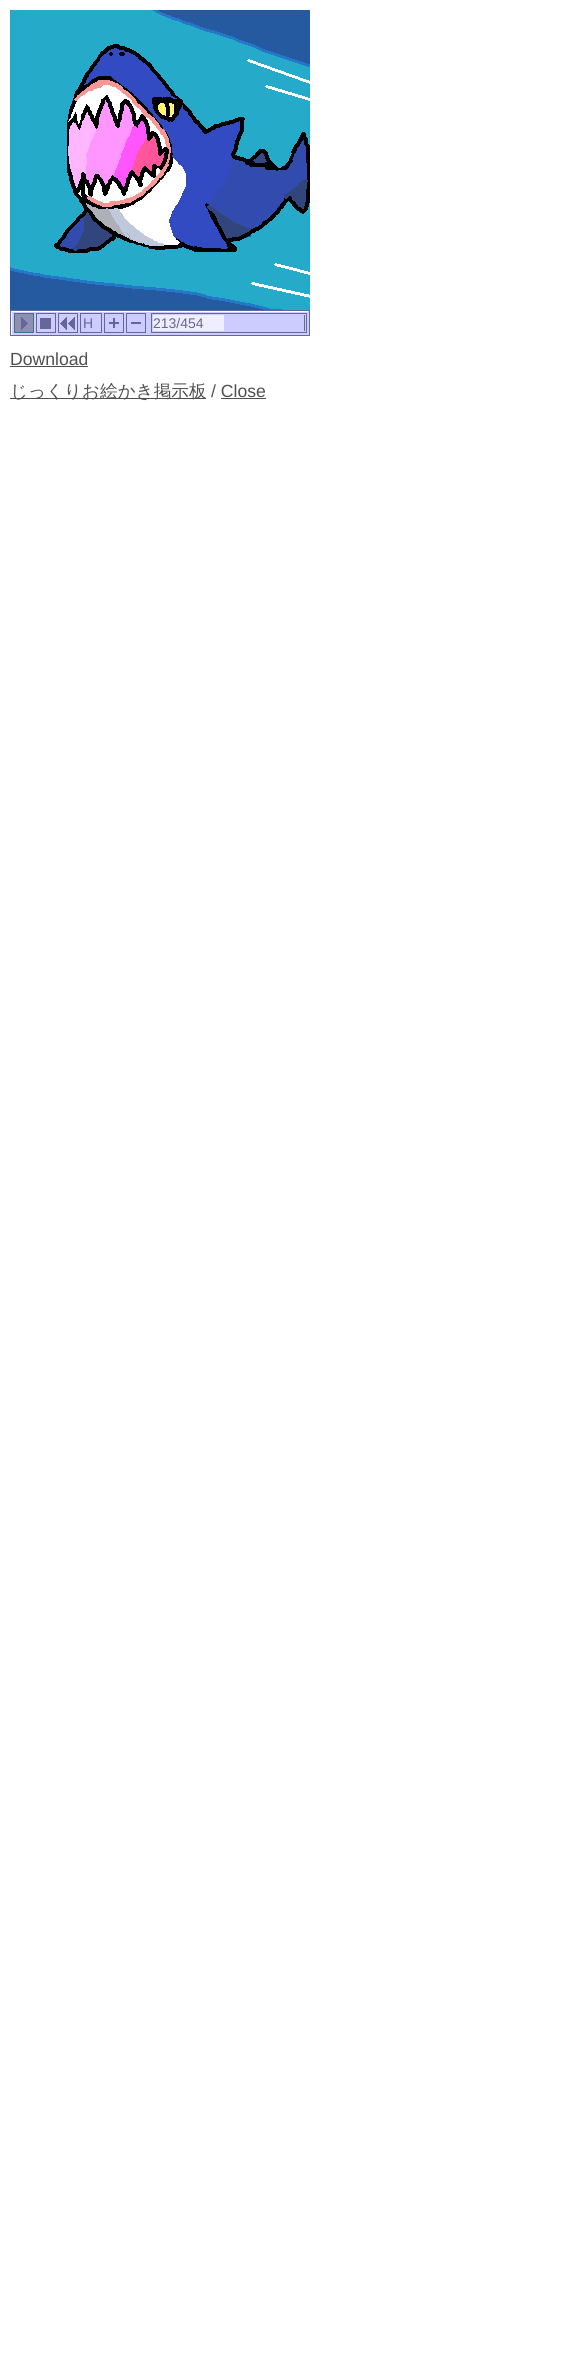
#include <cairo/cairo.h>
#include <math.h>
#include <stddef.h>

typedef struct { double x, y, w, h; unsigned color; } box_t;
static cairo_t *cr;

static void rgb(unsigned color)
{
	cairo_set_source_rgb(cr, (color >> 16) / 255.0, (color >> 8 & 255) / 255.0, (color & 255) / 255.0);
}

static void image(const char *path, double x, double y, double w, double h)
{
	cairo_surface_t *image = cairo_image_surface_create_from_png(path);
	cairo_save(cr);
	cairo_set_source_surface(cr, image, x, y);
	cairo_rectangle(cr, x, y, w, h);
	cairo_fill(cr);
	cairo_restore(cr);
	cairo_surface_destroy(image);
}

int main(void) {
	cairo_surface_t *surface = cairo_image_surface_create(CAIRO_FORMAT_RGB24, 579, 2364);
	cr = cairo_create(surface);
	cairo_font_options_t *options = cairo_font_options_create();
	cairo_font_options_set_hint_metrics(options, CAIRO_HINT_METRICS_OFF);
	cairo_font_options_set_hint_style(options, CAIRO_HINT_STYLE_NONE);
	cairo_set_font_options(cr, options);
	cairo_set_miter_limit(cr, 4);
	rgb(0xffffff);
	cairo_paint(cr);
	rgb(0xccccff);
	cairo_rectangle(cr, 12, 312, 296, 23);
	cairo_fill(cr);
	image("img/1.png", 10, 10, 300, 300);
	cairo_rectangle(cr, 10.5, 310.5, 299, 25);
	rgb(0x666699);
	cairo_set_line_width(cr, 1);
	cairo_stroke(cr);
	rgb(0xccccff);
	cairo_rectangle(cr, 308, 311, 1, 24);
	cairo_fill(cr);
	rgb(0x8f8fb3);
	cairo_rectangle(cr, 14.5, 313.5, 19, 19);
	cairo_fill_preserve(cr);
	rgb(0x407675);
	cairo_stroke(cr);
	image("img/2.png", 21, 317, 7, 13);
	cairo_rectangle(cr, 36.5, 313.5, 19, 19);
	rgb(0x666699);
	cairo_stroke(cr);
	cairo_rectangle(cr, 40, 318, 11, 11);
	cairo_fill(cr);
	cairo_rectangle(cr, 58.5, 313.5, 19, 19);
	cairo_stroke(cr);
	image("img/3.png", 60, 317, 15, 13);
	cairo_rectangle(cr, 80.5, 313.5, 21, 19);
	cairo_stroke(cr);
	cairo_rectangle(cr, 104.5, 313.5, 19, 19);
	cairo_stroke(cr);
	image("img/4.png", 109, 318, 10, 10);
	cairo_rectangle(cr, 126.5, 313.5, 19, 19);
	cairo_stroke(cr);
	cairo_rectangle(cr, 131, 322, 10, 2);
	cairo_fill(cr);
	cairo_rectangle(cr, 151.5, 313.5, 155, 19);
	cairo_stroke(cr);
	{
		static const box_t items[] = {
			{153, 315, 71, 16, 0xeeeeff},
			{304, 315, 1, 16, 0x666699},
			{10, 366, 78, 1, 0x4f4f4f},
			{10, 398, 196, 1, 0x4f4f4f},
			{221, 398, 45, 1, 0x4f4f4f},
		};
		for (size_t i = 0; i < sizeof items / sizeof *items; i++) {
			rgb(items[i].color);
			cairo_rectangle(cr, items[i].x, items[i].y, items[i].w, items[i].h);
			cairo_fill(cr);
		}
	}
	cairo_select_font_face(cr, "Liberation Sans", CAIRO_FONT_SLANT_NORMAL, CAIRO_FONT_WEIGHT_NORMAL);
	cairo_set_font_size(cr, 14);
	rgb(0x666699);
	cairo_move_to(cr, 83, 328);
	cairo_show_text(cr, "H");
	cairo_move_to(cr, 153, 328);
	cairo_show_text(cr, "213/454");
	cairo_set_font_size(cr, 17.6);
	rgb(0x4f4f4f);
	cairo_move_to(cr, 10, 365);
	cairo_show_text(cr, "Download");
	cairo_select_font_face(cr, "WenQuanYi Zen Hei Medium", CAIRO_FONT_SLANT_NORMAL, CAIRO_FONT_WEIGHT_NORMAL);
	cairo_move_to(cr, 10, 397);
	cairo_show_text(cr, "じっくりお絵かき掲示板");
	cairo_select_font_face(cr, "Liberation Sans", CAIRO_FONT_SLANT_NORMAL, CAIRO_FONT_WEIGHT_NORMAL);
	cairo_move_to(cr, 211, 397);
	cairo_show_text(cr, "/ Close");
	cairo_surface_write_to_png(surface, "page.png");
	cairo_font_options_destroy(options);
	cairo_destroy(cr);
	cairo_surface_destroy(surface);
	return 0;
}
